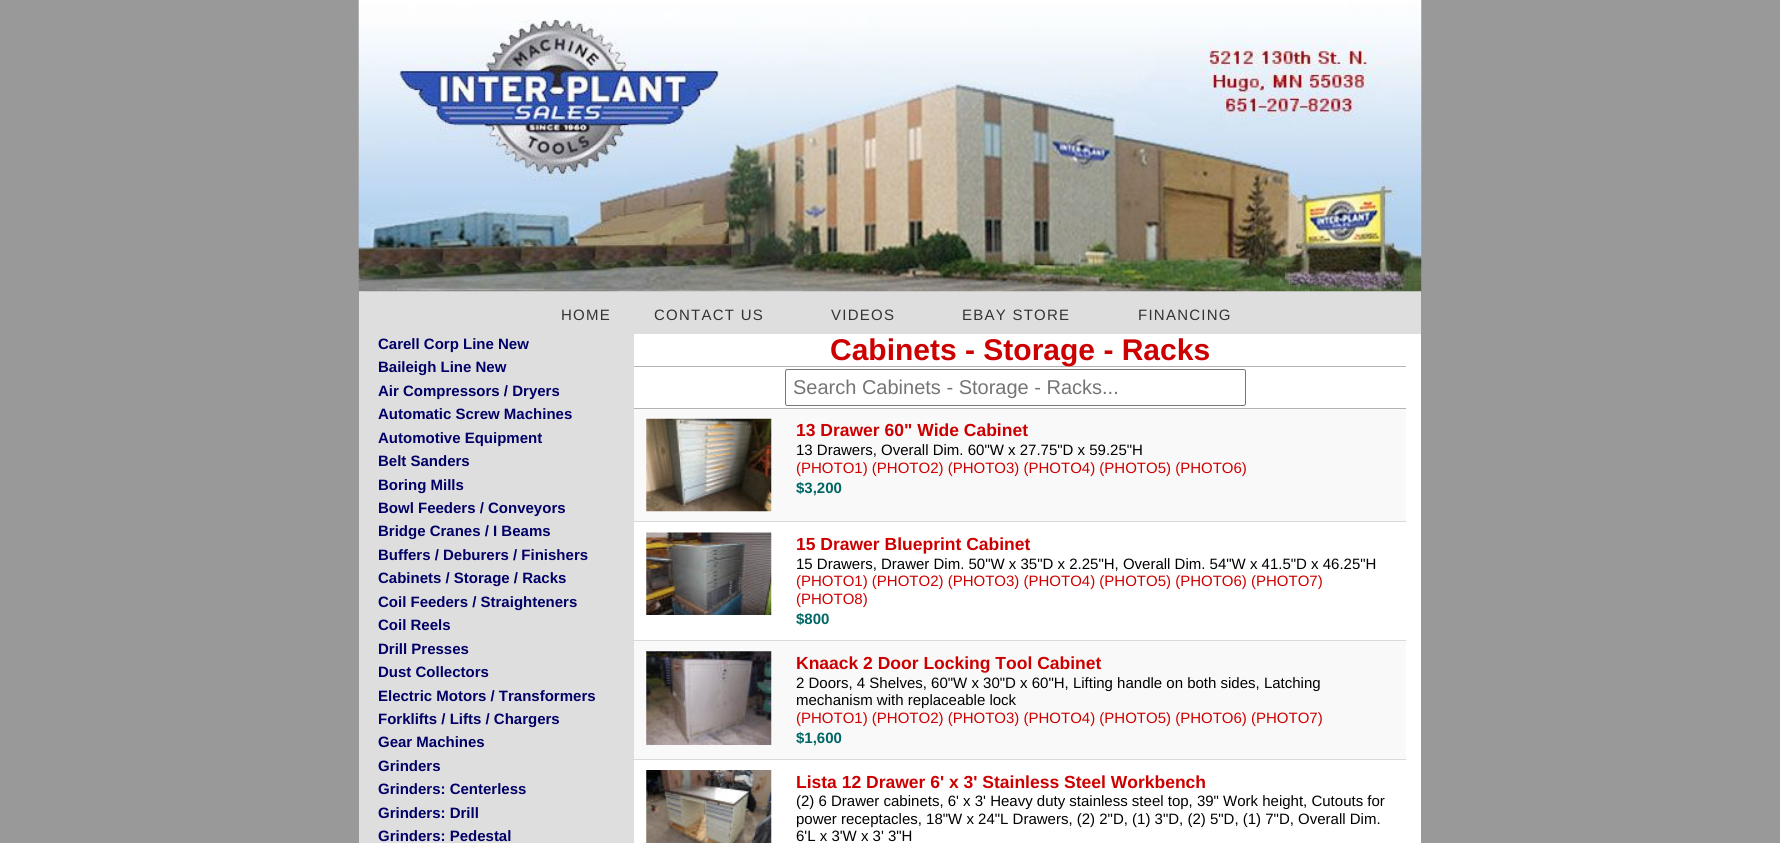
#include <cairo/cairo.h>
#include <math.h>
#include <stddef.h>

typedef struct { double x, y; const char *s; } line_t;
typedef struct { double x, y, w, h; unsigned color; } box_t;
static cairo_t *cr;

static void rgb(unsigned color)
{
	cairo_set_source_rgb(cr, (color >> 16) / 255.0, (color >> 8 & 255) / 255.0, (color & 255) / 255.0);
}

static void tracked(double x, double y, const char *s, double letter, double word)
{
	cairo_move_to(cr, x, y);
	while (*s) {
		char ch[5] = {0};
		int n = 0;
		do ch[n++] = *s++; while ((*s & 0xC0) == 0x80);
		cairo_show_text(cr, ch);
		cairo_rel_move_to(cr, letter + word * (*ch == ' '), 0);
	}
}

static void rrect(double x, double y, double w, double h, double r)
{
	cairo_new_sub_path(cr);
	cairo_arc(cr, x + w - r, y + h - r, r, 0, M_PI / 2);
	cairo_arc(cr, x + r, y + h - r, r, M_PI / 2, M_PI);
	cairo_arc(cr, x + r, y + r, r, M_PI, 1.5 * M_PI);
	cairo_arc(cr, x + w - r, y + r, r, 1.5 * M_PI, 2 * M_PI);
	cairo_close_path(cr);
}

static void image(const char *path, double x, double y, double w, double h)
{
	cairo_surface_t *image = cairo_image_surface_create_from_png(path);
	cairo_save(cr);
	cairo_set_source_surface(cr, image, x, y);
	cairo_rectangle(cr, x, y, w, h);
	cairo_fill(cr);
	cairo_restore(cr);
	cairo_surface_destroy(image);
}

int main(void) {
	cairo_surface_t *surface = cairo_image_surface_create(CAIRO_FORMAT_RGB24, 1780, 843);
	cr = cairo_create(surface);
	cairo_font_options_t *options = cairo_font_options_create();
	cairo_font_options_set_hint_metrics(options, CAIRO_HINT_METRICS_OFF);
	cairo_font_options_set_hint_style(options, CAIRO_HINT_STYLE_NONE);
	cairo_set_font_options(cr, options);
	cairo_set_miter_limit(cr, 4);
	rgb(0x999999);
	cairo_paint(cr);
	rgb(0xdedede);
	cairo_rectangle(cr, 359, 291, 1062, 43);
	cairo_fill(cr);
	image("img/1.png", 358, 0, 1064, 292);
	{
		static const box_t items[] = {
			{634, 334, 787, 509, 0xffffff},
			{359, 334, 275, 509, 0xdedede},
			{634, 366, 772, 1, 0xb3b3b3},
		};
		for (size_t i = 0; i < sizeof items / sizeof *items; i++) {
			rgb(items[i].color);
			cairo_rectangle(cr, items[i].x, items[i].y, items[i].w, items[i].h);
			cairo_fill(cr);
		}
	}
	rrect(785.5, 369.5, 460, 36, 2);
	rgb(0x767676);
	cairo_set_line_width(cr, 1);
	cairo_stroke(cr);
	rgb(0xb3b3b3);
	cairo_rectangle(cr, 634, 408, 772, 1);
	cairo_fill(cr);
	rgb(0xf9f9f9);
	cairo_rectangle(cr, 634, 409, 772, 112);
	cairo_fill(cr);
	image("img/2.png", 646, 418, 126, 94);
	rgb(0xd9d9d9);
	cairo_rectangle(cr, 634, 521, 772, 1);
	cairo_fill(cr);
	image("img/3.png", 646, 532, 126, 83);
	rgb(0xf9f9f9);
	cairo_rectangle(cr, 634, 641, 772, 118);
	cairo_fill(cr);
	rgb(0xd9d9d9);
	cairo_rectangle(cr, 634, 640, 772, 1);
	cairo_fill(cr);
	image("img/4.png", 646, 651, 126, 94);
	cairo_rectangle(cr, 634, 759, 772, 1);
	cairo_fill(cr);
	image("img/5.png", 646, 770, 126, 73);
	cairo_select_font_face(cr, "Liberation Sans", CAIRO_FONT_SLANT_NORMAL, CAIRO_FONT_WEIGHT_NORMAL);
	cairo_set_font_size(cr, 15);
	rgb(0x333333);
	{
		static const line_t items[] = {
			{561, 320, "HOME"},
			{654, 320, "CONTACT US"},
			{831, 320, "VIDEOS"},
			{962, 320, "EBAY STORE"},
			{1138, 320, "FINANCING"},
		};
		for (size_t i = 0; i < sizeof items / sizeof *items; i++) {
			tracked(items[i].x, items[i].y, items[i].s, 1.25, 0);
		}
	}
	cairo_select_font_face(cr, "Liberation Sans", CAIRO_FONT_SLANT_NORMAL, CAIRO_FONT_WEIGHT_BOLD);
	rgb(0x000066);
	{
		static const line_t items[] = {
			{378, 349, "Carell Corp Line New"},
			{378, 372, "Baileigh Line New"},
			{378, 396, "Air Compressors / Dryers"},
			{378, 419, "Automatic Screw Machines"},
			{378, 443, "Automotive Equipment"},
			{378, 466, "Belt Sanders"},
			{378, 490, "Boring Mills"},
			{378, 513, "Bowl Feeders / Conveyors"},
			{378, 536, "Bridge Cranes / I Beams"},
			{378, 560, "Buffers / Deburers / Finishers"},
			{378, 583, "Cabinets / Storage / Racks"},
			{378, 607, "Coil Feeders / Straighteners"},
			{378, 630, "Coil Reels"},
			{378, 654, "Drill Presses"},
			{378, 677, "Dust Collectors"},
			{378, 701, "Electric Motors / Transformers"},
			{378, 724, "Forklifts / Lifts / Chargers"},
			{378, 747, "Gear Machines"},
			{378, 771, "Grinders"},
			{378, 794, "Grinders: Centerless"},
			{378, 818, "Grinders: Drill"},
			{378, 841, "Grinders: Pedestal"},
		};
		for (size_t i = 0; i < sizeof items / sizeof *items; i++) {
			cairo_move_to(cr, items[i].x, items[i].y);
			cairo_show_text(cr, items[i].s);
		}
	}
	cairo_set_font_size(cr, 30);
	rgb(0xcc0000);
	cairo_move_to(cr, 830, 360);
	cairo_show_text(cr, "Cabinets - Storage - Racks");
	cairo_select_font_face(cr, "Liberation Sans", CAIRO_FONT_SLANT_NORMAL, CAIRO_FONT_WEIGHT_NORMAL);
	cairo_set_font_size(cr, 20);
	rgb(0x757575);
	cairo_move_to(cr, 793, 394);
	cairo_show_text(cr, "Search Cabinets - Storage - Racks...");
	cairo_select_font_face(cr, "Liberation Sans", CAIRO_FONT_SLANT_NORMAL, CAIRO_FONT_WEIGHT_BOLD);
	cairo_set_font_size(cr, 17.5);
	rgb(0xcc0000);
	cairo_move_to(cr, 796, 436);
	cairo_show_text(cr, "13 Drawer 60\" Wide Cabinet");
	cairo_select_font_face(cr, "Liberation Sans", CAIRO_FONT_SLANT_NORMAL, CAIRO_FONT_WEIGHT_NORMAL);
	cairo_set_font_size(cr, 15);
	rgb(0x000000);
	cairo_move_to(cr, 796, 455);
	cairo_show_text(cr, "13 Drawers, Overall Dim. 60\"W x 27.75\"D x 59.25\"H");
	rgb(0xcc0000);
	cairo_move_to(cr, 796, 473);
	cairo_show_text(cr, "(PHOTO1) (PHOTO2) (PHOTO3) (PHOTO4) (PHOTO5) (PHOTO6)");
	cairo_select_font_face(cr, "Liberation Sans", CAIRO_FONT_SLANT_NORMAL, CAIRO_FONT_WEIGHT_BOLD);
	rgb(0x006666);
	cairo_move_to(cr, 796, 493);
	cairo_show_text(cr, "$3,200");
	cairo_set_font_size(cr, 17.5);
	rgb(0xcc0000);
	cairo_move_to(cr, 796, 550);
	cairo_show_text(cr, "15 Drawer Blueprint Cabinet");
	cairo_select_font_face(cr, "Liberation Sans", CAIRO_FONT_SLANT_NORMAL, CAIRO_FONT_WEIGHT_NORMAL);
	cairo_set_font_size(cr, 15);
	rgb(0x000000);
	cairo_move_to(cr, 796, 569);
	cairo_show_text(cr, "15 Drawers, Drawer Dim. 50\"W x 35\"D x 2.25\"H, Overall Dim. 54\"W x 41.5\"D x 46.25\"H");
	rgb(0xcc0000);
	cairo_move_to(cr, 796, 586);
	cairo_show_text(cr, "(PHOTO1) (PHOTO2) (PHOTO3) (PHOTO4) (PHOTO5) (PHOTO6) (PHOTO7)");
	cairo_move_to(cr, 796, 604);
	cairo_show_text(cr, "(PHOTO8)");
	cairo_select_font_face(cr, "Liberation Sans", CAIRO_FONT_SLANT_NORMAL, CAIRO_FONT_WEIGHT_BOLD);
	rgb(0x006666);
	cairo_move_to(cr, 796, 624);
	cairo_show_text(cr, "$800");
	cairo_set_font_size(cr, 17.5);
	rgb(0xcc0000);
	cairo_move_to(cr, 796, 669);
	cairo_show_text(cr, "Knaack 2 Door Locking Tool Cabinet");
	cairo_select_font_face(cr, "Liberation Sans", CAIRO_FONT_SLANT_NORMAL, CAIRO_FONT_WEIGHT_NORMAL);
	cairo_set_font_size(cr, 15);
	rgb(0x000000);
	cairo_move_to(cr, 796, 688);
	cairo_show_text(cr, "2 Doors, 4 Shelves, 60\"W x 30\"D x 60\"H, Lifting handle on both sides, Latching");
	cairo_move_to(cr, 796, 705);
	cairo_show_text(cr, "mechanism with replaceable lock");
	rgb(0xcc0000);
	cairo_move_to(cr, 796, 723);
	cairo_show_text(cr, "(PHOTO1) (PHOTO2) (PHOTO3) (PHOTO4) (PHOTO5) (PHOTO6) (PHOTO7)");
	cairo_select_font_face(cr, "Liberation Sans", CAIRO_FONT_SLANT_NORMAL, CAIRO_FONT_WEIGHT_BOLD);
	rgb(0x006666);
	cairo_move_to(cr, 796, 743);
	cairo_show_text(cr, "$1,600");
	cairo_set_font_size(cr, 17.5);
	rgb(0xcc0000);
	cairo_move_to(cr, 796, 788);
	cairo_show_text(cr, "Lista 12 Drawer 6' x 3' Stainless Steel Workbench");
	cairo_select_font_face(cr, "Liberation Sans", CAIRO_FONT_SLANT_NORMAL, CAIRO_FONT_WEIGHT_NORMAL);
	cairo_set_font_size(cr, 15);
	rgb(0x000000);
	{
		static const line_t items[] = {
			{796, 806, "(2) 6 Drawer cabinets, 6' x 3' Heavy duty stainless steel top, 39\" Work height, Cutouts for"},
			{796, 824, "power receptacles, 18\"W x 24\"L Drawers, (2) 2\"D, (1) 3\"D, (2) 5\"D, (1) 7\"D, Overall Dim."},
			{796, 841, "6'L x 3'W x 3' 3\"H"},
		};
		for (size_t i = 0; i < sizeof items / sizeof *items; i++) {
			cairo_move_to(cr, items[i].x, items[i].y);
			cairo_show_text(cr, items[i].s);
		}
	}
	cairo_surface_write_to_png(surface, "page.png");
	cairo_font_options_destroy(options);
	cairo_destroy(cr);
	cairo_surface_destroy(surface);
	return 0;
}
